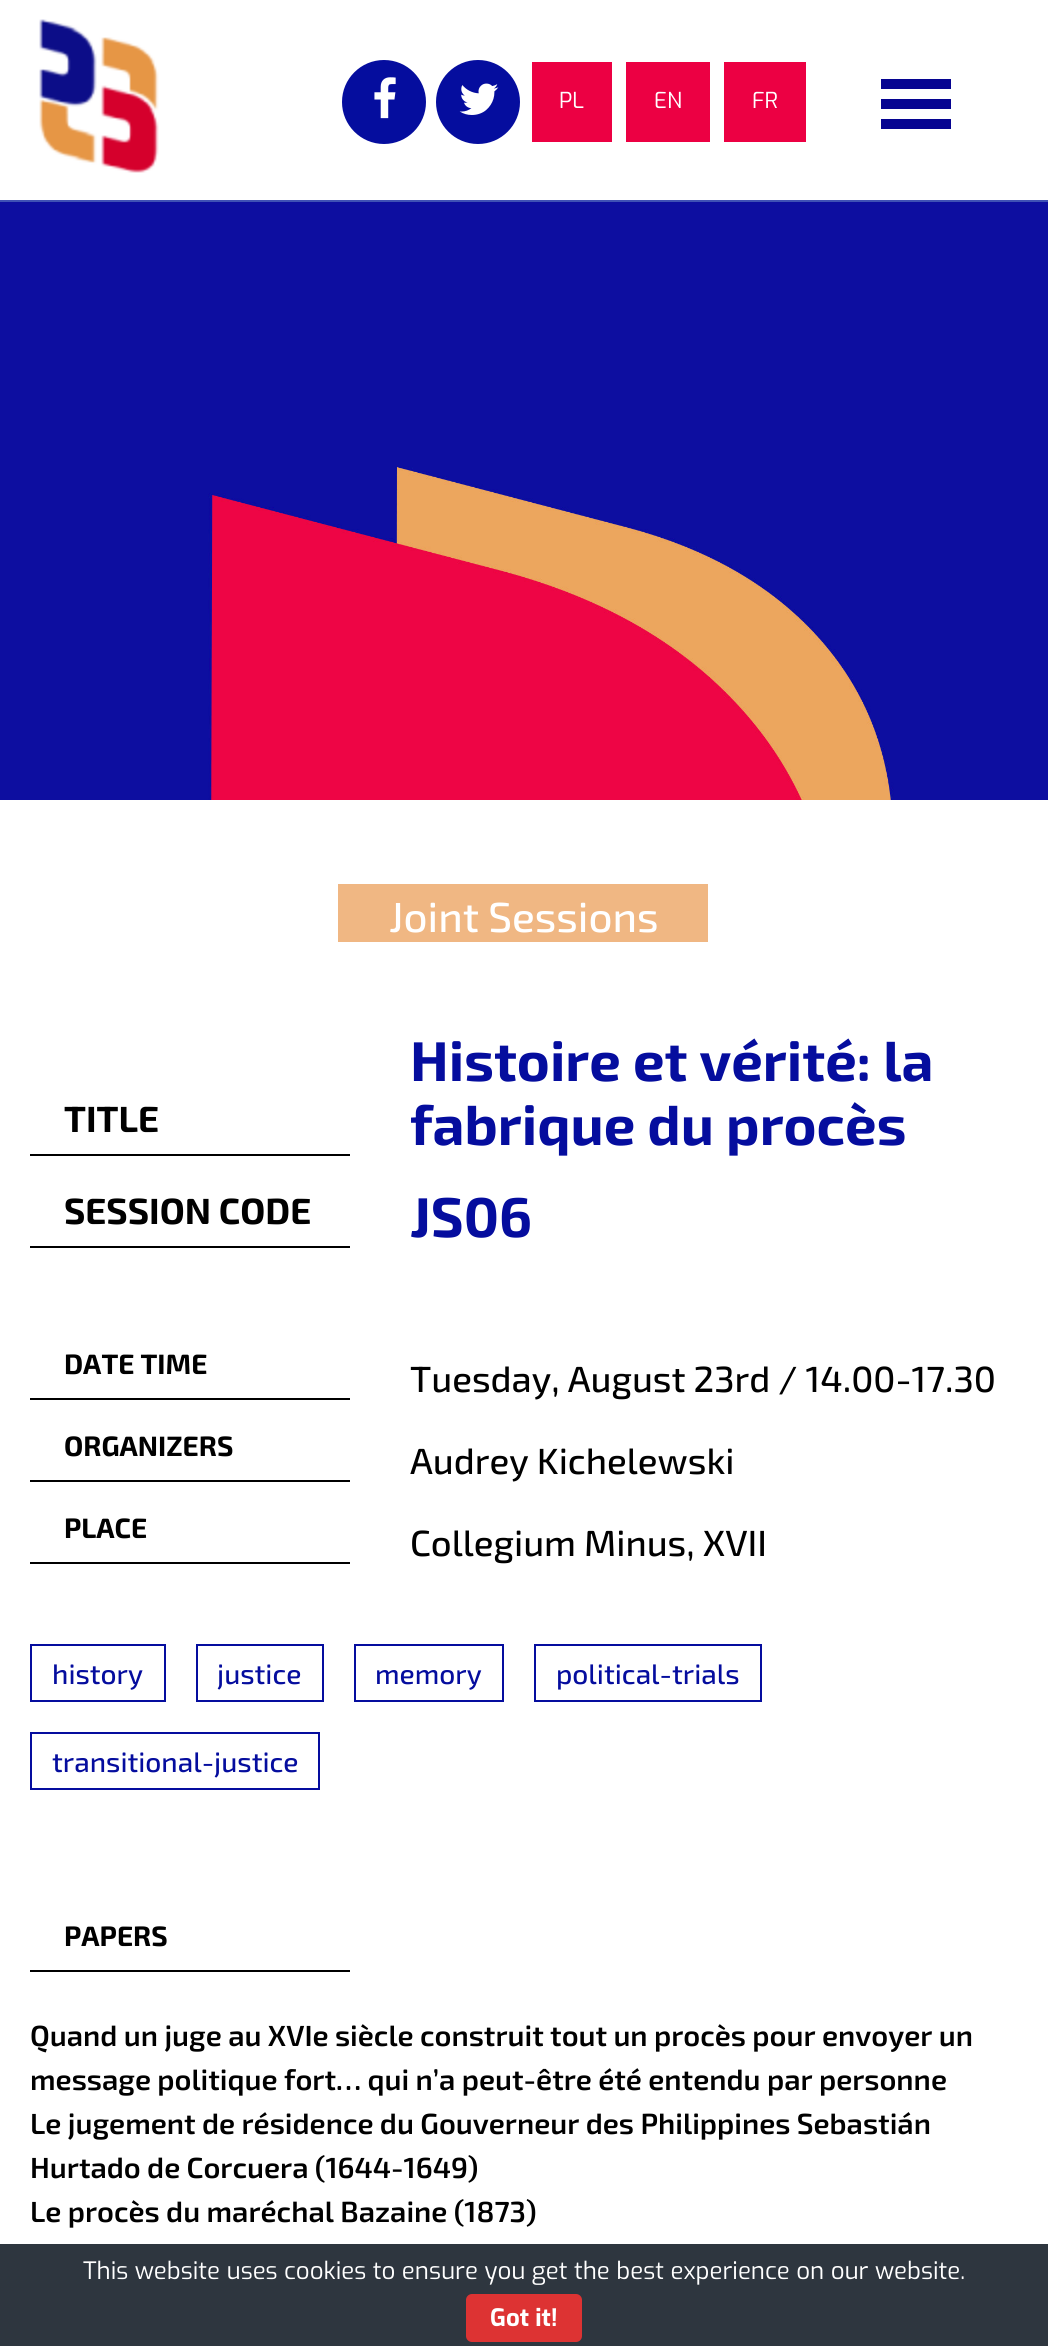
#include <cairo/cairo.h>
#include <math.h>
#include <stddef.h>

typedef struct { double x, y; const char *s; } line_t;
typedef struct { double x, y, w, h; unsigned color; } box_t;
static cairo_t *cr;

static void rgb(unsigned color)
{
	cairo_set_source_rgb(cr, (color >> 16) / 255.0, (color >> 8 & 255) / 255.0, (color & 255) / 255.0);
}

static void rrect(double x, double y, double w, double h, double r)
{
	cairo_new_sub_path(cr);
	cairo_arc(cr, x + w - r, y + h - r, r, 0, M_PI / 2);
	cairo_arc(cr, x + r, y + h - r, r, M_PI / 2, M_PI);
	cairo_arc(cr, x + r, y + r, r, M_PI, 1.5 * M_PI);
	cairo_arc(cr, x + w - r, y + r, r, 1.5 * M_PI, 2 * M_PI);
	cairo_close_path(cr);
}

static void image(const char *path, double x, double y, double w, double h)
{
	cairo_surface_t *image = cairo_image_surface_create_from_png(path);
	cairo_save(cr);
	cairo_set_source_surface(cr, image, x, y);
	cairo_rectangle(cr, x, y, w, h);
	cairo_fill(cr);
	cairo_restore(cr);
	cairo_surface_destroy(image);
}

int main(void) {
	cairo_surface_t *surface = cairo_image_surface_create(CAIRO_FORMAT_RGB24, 1048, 2346);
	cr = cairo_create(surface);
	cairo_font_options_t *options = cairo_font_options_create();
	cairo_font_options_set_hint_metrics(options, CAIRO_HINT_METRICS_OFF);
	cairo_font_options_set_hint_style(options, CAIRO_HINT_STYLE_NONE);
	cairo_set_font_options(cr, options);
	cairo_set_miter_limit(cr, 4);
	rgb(0xffffff);
	cairo_paint(cr);
	rgb(0x3f51b5);
	cairo_rectangle(cr, 0, 200, 1048, 2);
	cairo_fill(cr);
	image("img/1.png", 39, 19, 120, 154);
	rgb(0x050d9e);
	cairo_arc(cr, 384, 102, 41, 0, 2 * M_PI);
	cairo_fill_preserve(cr);
	cairo_stroke(cr);
	image("img/2.png", 374, 77, 22, 42);
	cairo_arc(cr, 478, 102, 41, 0, 2 * M_PI);
	cairo_fill_preserve(cr);
	cairo_stroke(cr);
	image("img/3.png", 459, 83, 40, 32);
	{
		static const box_t items[] = {
			{532, 62, 80, 80, 0xec0043},
			{626, 62, 84, 80, 0xec0043},
			{724, 62, 82, 80, 0xec0043},
		};
		for (size_t i = 0; i < sizeof items / sizeof *items; i++) {
			rgb(items[i].color);
			cairo_rectangle(cr, items[i].x, items[i].y, items[i].w, items[i].h);
			cairo_fill(cr);
		}
	}
	rgb(0x060491);
	cairo_new_path(cr);
	cairo_move_to(cr, 881, 129);
	cairo_line_to(cr, 951, 129);
	cairo_line_to(cr, 951, 119);
	cairo_line_to(cr, 881, 119);
	cairo_close_path(cr);
	cairo_move_to(cr, 881, 79);
	cairo_line_to(cr, 881, 89);
	cairo_line_to(cr, 951, 89);
	cairo_line_to(cr, 951, 79);
	cairo_close_path(cr);
	cairo_move_to(cr, 881, 109);
	cairo_line_to(cr, 951, 109);
	cairo_line_to(cr, 951, 99);
	cairo_line_to(cr, 881, 99);
	cairo_close_path(cr);
	cairo_fill(cr);
	image("img/4.png", 0, 202, 1048, 598);
	{
		static const box_t items[] = {
			{338, 884, 370, 58, 0xf0b783},
			{30, 1154, 320, 2, 0x000000},
			{30, 1246, 320, 2, 0x000000},
			{30, 1398, 320, 2, 0x000000},
			{30, 1480, 320, 2, 0x000000},
			{30, 1562, 320, 2, 0x000000},
		};
		for (size_t i = 0; i < sizeof items / sizeof *items; i++) {
			rgb(items[i].color);
			cairo_rectangle(cr, items[i].x, items[i].y, items[i].w, items[i].h);
			cairo_fill(cr);
		}
	}
	cairo_rectangle(cr, 31, 1645, 134, 56);
	rgb(0x050d9e);
	cairo_stroke(cr);
	cairo_rectangle(cr, 197, 1645, 126, 56);
	cairo_stroke(cr);
	cairo_rectangle(cr, 355, 1645, 148, 56);
	cairo_stroke(cr);
	cairo_rectangle(cr, 535, 1645, 226, 56);
	cairo_stroke(cr);
	cairo_rectangle(cr, 31, 1733, 288, 56);
	cairo_stroke(cr);
	rgb(0x000000);
	cairo_rectangle(cr, 30, 1970, 320, 2);
	cairo_fill(cr);
	rgb(0x2e363f);
	cairo_rectangle(cr, 0, 2244, 1048, 102);
	cairo_fill(cr);
	rgb(0xdd3333);
	rrect(466, 2294, 116, 48, 6);
	cairo_fill(cr);
	cairo_select_font_face(cr, "Exo", CAIRO_FONT_SLANT_NORMAL, CAIRO_FONT_WEIGHT_NORMAL);
	cairo_set_font_size(cr, 22);
	rgb(0xffffff);
	{
		static const line_t items[] = {
			{559, 108, "PL"},
			{654, 108, "EN"},
			{752, 108, "FR"},
		};
		for (size_t i = 0; i < sizeof items / sizeof *items; i++) {
			cairo_move_to(cr, items[i].x, items[i].y);
			cairo_show_text(cr, items[i].s);
		}
	}
	cairo_select_font_face(cr, "Exo 2 Medium", CAIRO_FONT_SLANT_NORMAL, CAIRO_FONT_WEIGHT_NORMAL);
	cairo_set_font_size(cr, 42);
	cairo_move_to(cr, 389, 932);
	cairo_show_text(cr, "Joint Sessions");
	cairo_select_font_face(cr, "Exo 2", CAIRO_FONT_SLANT_NORMAL, CAIRO_FONT_WEIGHT_BOLD);
	cairo_set_font_size(cr, 36.4);
	rgb(0x000000);
	cairo_move_to(cr, 64, 1132);
	cairo_show_text(cr, "TITLE");
	cairo_set_font_size(cr, 56);
	rgb(0x050d9e);
	cairo_move_to(cr, 410, 1081);
	cairo_show_text(cr, "Histoire et vérité: la");
	cairo_move_to(cr, 410, 1145);
	cairo_show_text(cr, "fabrique du procès");
	cairo_set_font_size(cr, 36.4);
	rgb(0x000000);
	cairo_move_to(cr, 64, 1224);
	cairo_show_text(cr, "SESSION CODE");
	cairo_set_font_size(cr, 56);
	rgb(0x050d9e);
	cairo_move_to(cr, 410, 1237);
	cairo_show_text(cr, "JS06");
	cairo_set_font_size(cr, 28);
	rgb(0x000000);
	cairo_move_to(cr, 64, 1374);
	cairo_show_text(cr, "DATE TIME");
	cairo_select_font_face(cr, "Exo 2 Medium", CAIRO_FONT_SLANT_NORMAL, CAIRO_FONT_WEIGHT_NORMAL);
	cairo_set_font_size(cr, 36.4);
	cairo_move_to(cr, 410, 1392);
	cairo_show_text(cr, "Tuesday, August 23rd / 14.00-17.30");
	cairo_select_font_face(cr, "Exo 2", CAIRO_FONT_SLANT_NORMAL, CAIRO_FONT_WEIGHT_BOLD);
	cairo_set_font_size(cr, 28);
	cairo_move_to(cr, 64, 1456);
	cairo_show_text(cr, "ORGANIZERS");
	cairo_select_font_face(cr, "Exo 2 Medium", CAIRO_FONT_SLANT_NORMAL, CAIRO_FONT_WEIGHT_NORMAL);
	cairo_set_font_size(cr, 36.4);
	cairo_move_to(cr, 410, 1474);
	cairo_show_text(cr, "Audrey Kichelewski");
	cairo_select_font_face(cr, "Exo 2", CAIRO_FONT_SLANT_NORMAL, CAIRO_FONT_WEIGHT_BOLD);
	cairo_set_font_size(cr, 28);
	cairo_move_to(cr, 64, 1538);
	cairo_show_text(cr, "PLACE");
	cairo_select_font_face(cr, "Exo 2 Medium", CAIRO_FONT_SLANT_NORMAL, CAIRO_FONT_WEIGHT_NORMAL);
	cairo_set_font_size(cr, 36.4);
	cairo_move_to(cr, 410, 1556);
	cairo_show_text(cr, "Collegium Minus, XVII");
	cairo_set_font_size(cr, 28);
	rgb(0x050d9e);
	{
		static const line_t items[] = {
			{52, 1684, "history"},
			{217, 1684, "justice"},
			{375, 1684, "memory"},
			{556, 1684, "political-trials"},
			{52, 1772, "transitional-justice"},
		};
		for (size_t i = 0; i < sizeof items / sizeof *items; i++) {
			cairo_move_to(cr, items[i].x, items[i].y);
			cairo_show_text(cr, items[i].s);
		}
	}
	cairo_select_font_face(cr, "Exo 2", CAIRO_FONT_SLANT_NORMAL, CAIRO_FONT_WEIGHT_BOLD);
	rgb(0x000000);
	cairo_move_to(cr, 64, 1946);
	cairo_show_text(cr, "PAPERS");
	cairo_select_font_face(cr, "Exo 2 SemiBold", CAIRO_FONT_SLANT_NORMAL, CAIRO_FONT_WEIGHT_NORMAL);
	cairo_set_font_size(cr, 29.1);
	{
		static const line_t items[] = {
			{30, 2046, "Quand un juge au XVIe siècle construit tout un procès pour envoyer un"},
			{30, 2090, "message politique fort… qui n’a peut-être été entendu par personne"},
			{30, 2134, "Le jugement de résidence du Gouverneur des Philippines Sebastián"},
			{30, 2178, "Hurtado de Corcuera (1644-1649)"},
			{30, 2222, "Le procès du maréchal Bazaine (1873)"},
		};
		for (size_t i = 0; i < sizeof items / sizeof *items; i++) {
			cairo_move_to(cr, items[i].x, items[i].y);
			cairo_show_text(cr, items[i].s);
		}
	}
	cairo_select_font_face(cr, "Exo", CAIRO_FONT_SLANT_NORMAL, CAIRO_FONT_WEIGHT_NORMAL);
	cairo_set_font_size(cr, 24);
	rgb(0xffffff);
	cairo_move_to(cr, 83, 2279);
	cairo_show_text(cr, "This website uses cookies to ensure you get the best experience on our website.");
	cairo_select_font_face(cr, "Exo", CAIRO_FONT_SLANT_NORMAL, CAIRO_FONT_WEIGHT_BOLD);
	cairo_move_to(cr, 490, 2326);
	cairo_show_text(cr, "Got it!");
	cairo_surface_write_to_png(surface, "page.png");
	cairo_font_options_destroy(options);
	cairo_destroy(cr);
	cairo_surface_destroy(surface);
	return 0;
}
